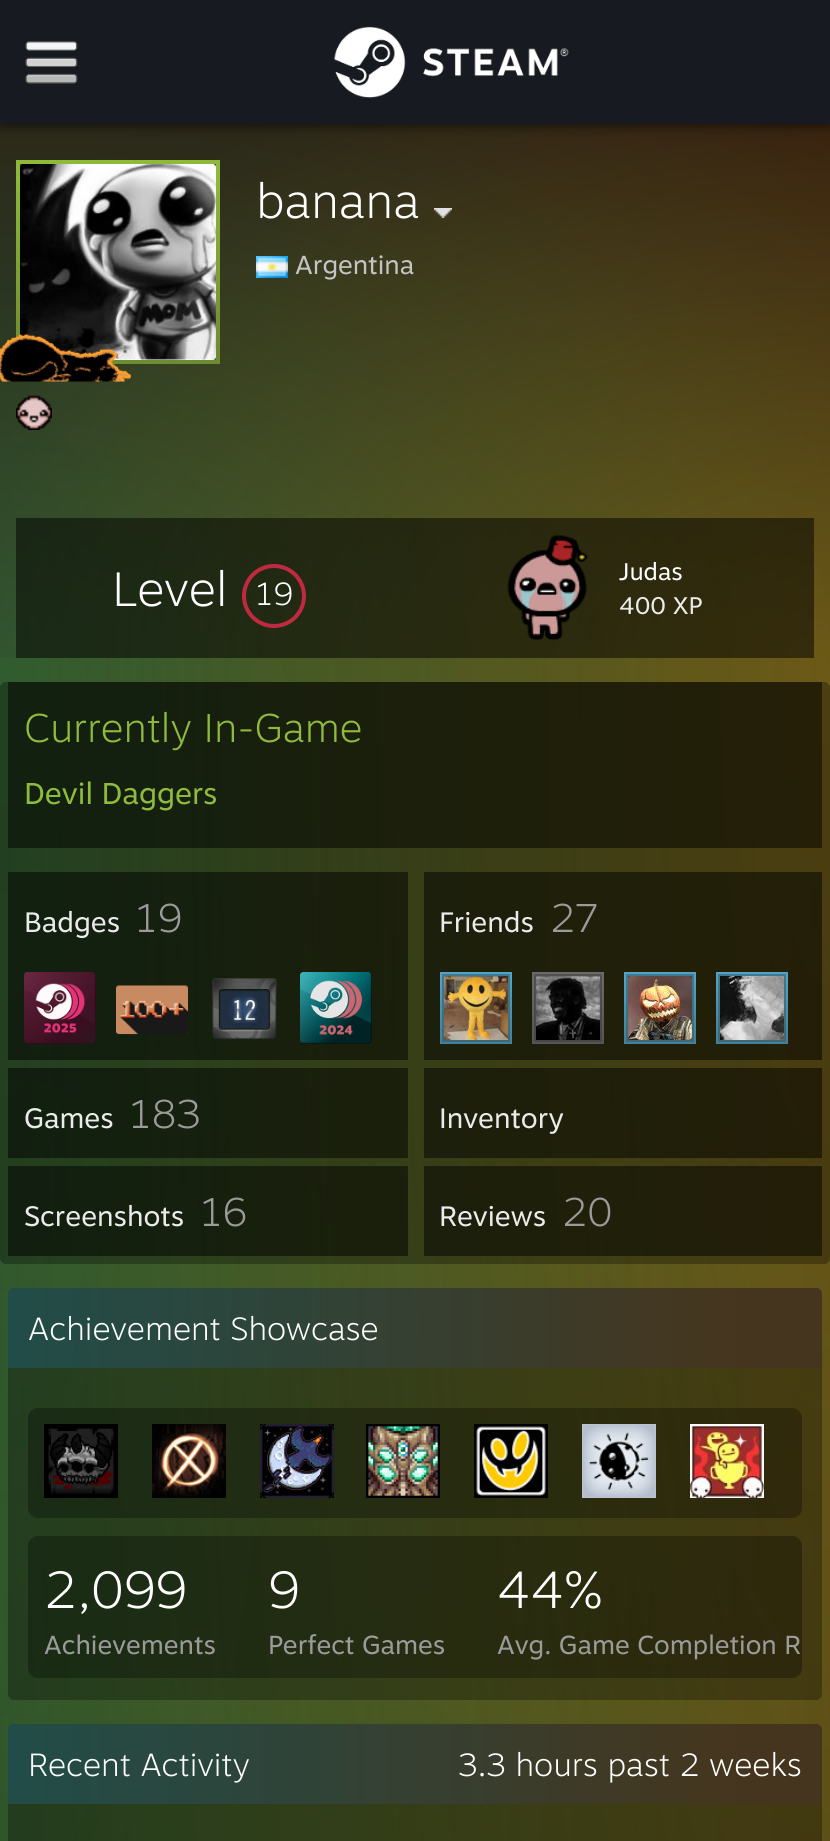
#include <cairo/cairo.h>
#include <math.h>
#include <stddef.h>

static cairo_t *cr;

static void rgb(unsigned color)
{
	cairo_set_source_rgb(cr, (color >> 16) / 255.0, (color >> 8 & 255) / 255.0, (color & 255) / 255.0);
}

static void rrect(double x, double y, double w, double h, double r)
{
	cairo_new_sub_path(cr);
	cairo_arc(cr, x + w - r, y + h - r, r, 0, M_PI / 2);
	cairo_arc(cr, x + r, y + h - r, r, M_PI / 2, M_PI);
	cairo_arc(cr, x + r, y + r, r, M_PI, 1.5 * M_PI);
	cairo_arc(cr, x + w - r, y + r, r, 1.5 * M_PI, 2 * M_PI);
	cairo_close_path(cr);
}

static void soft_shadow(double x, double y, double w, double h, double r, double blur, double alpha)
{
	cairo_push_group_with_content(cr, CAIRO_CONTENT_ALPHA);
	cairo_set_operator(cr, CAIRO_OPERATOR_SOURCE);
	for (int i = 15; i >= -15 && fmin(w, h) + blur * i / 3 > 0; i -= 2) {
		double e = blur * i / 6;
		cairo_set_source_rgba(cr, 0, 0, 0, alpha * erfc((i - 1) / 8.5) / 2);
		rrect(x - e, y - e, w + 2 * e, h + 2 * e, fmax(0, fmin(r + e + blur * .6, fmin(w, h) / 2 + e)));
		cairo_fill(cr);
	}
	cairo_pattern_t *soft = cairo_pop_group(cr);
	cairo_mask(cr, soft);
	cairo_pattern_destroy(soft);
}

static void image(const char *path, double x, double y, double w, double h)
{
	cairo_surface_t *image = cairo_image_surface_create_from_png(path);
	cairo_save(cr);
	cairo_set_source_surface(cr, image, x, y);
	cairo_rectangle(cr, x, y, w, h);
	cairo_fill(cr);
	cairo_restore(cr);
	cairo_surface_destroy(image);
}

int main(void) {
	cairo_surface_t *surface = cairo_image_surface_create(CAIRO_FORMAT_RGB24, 830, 1841);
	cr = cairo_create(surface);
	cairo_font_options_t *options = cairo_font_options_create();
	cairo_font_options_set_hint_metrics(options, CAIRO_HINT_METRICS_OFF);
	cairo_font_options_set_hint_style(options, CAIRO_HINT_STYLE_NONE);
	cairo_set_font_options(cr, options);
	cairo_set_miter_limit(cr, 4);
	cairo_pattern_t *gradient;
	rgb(0xffffff);
	cairo_paint(cr);
	gradient = cairo_pattern_create_radial(0, 0, 0, 0, 0, 1);
	cairo_pattern_set_matrix(gradient, &(cairo_matrix_t){1.0 / 1200, 0, 0, 1.0 / 772, -1.0 * 0 / 1200, -1.0 * 658 / 772});
	cairo_pattern_add_color_stop_rgba(gradient, 0, 0.149, 0.31, 0.192, 1);
	cairo_pattern_add_color_stop_rgba(gradient, 1, 0.184, 0.098, 0.059, 1);
	cairo_set_source(cr, gradient);
	cairo_pattern_destroy(gradient);
	cairo_rectangle(cr, 0, 124, 830, 534);
	cairo_fill(cr);
	gradient = cairo_pattern_create_radial(0, 0, 0, 0, 0, 1);
	cairo_pattern_set_matrix(gradient, &(cairo_matrix_t){1.0 / 1000, 0, 0, 1.0 / 643, -1.0 * 830 / 1000, -1.0 * 658 / 643});
	cairo_pattern_add_color_stop_rgba(gradient, 0, 0.988, 0.773, 0.063, 0.3);
	cairo_pattern_add_color_stop_rgba(gradient, 1, 0.988, 0.773, 0.063, 0);
	cairo_set_source(cr, gradient);
	cairo_pattern_destroy(gradient);
	cairo_rectangle(cr, 0, 124, 830, 534);
	cairo_fill(cr);
	rgb(0x000000);
	soft_shadow(0, 0, 830, 124, 0, 7, 0.75);
	rgb(0x171a21);
	cairo_rectangle(cr, 0, 0, 830, 124);
	cairo_fill(cr);
	image("img/1.png", 25, 41, 53, 43);
	image("img/2.png", 334, 26, 235, 72);
	gradient = cairo_pattern_create_linear(118, 160, 118, 364);
	cairo_pattern_add_color_stop_rgba(gradient, 0.05, 0.561, 0.725, 0.231, 1);
	cairo_pattern_add_color_stop_rgba(gradient, 0.95, 0.431, 0.549, 0.192, 1);
	cairo_set_source(cr, gradient);
	cairo_pattern_destroy(gradient);
	cairo_rectangle(cr, 16, 160, 204, 204);
	cairo_fill(cr);
	image("img/3.png", 20, 164, 196, 196);
	image("img/4.png", 0, 334, 131, 48);
	image("img/5.png", 434, 208, 18, 10);
	image("img/6.png", 256, 256, 32, 22);
	image("img/7.png", 16, 395, 36, 35);
	cairo_set_source_rgba(cr, 0, 0, 0, 0.5);
	cairo_rectangle(cr, 16, 518, 798, 140);
	cairo_fill(cr);
	cairo_arc(cr, 274, 596, 30, 0, 2 * M_PI);
	rgb(0xc02942);
	cairo_set_line_width(cr, 4);
	cairo_stroke(cr);
	image("img/8.png", 507, 535, 81, 105);
	gradient = cairo_pattern_create_radial(0, 0, 0, 0, 0, 1);
	cairo_pattern_set_matrix(gradient, &(cairo_matrix_t){1.0 / 1200, 0, 0, 1.0 / 6217, -1.0 * 0 / 1200, -1.0 * 4958 / 6217});
	cairo_pattern_add_color_stop_rgba(gradient, 0, 0.188, 0.208, 0.055, 1);
	cairo_pattern_add_color_stop_rgba(gradient, 1, 0.188, 0.098, 0.059, 1);
	cairo_set_source(cr, gradient);
	cairo_pattern_destroy(gradient);
	cairo_rectangle(cr, 0, 658, 830, 1183);
	cairo_fill(cr);
	gradient = cairo_pattern_create_radial(0, 0, 0, 0, 0, 1);
	cairo_pattern_set_matrix(gradient, &(cairo_matrix_t){1.0 / 1200, 0, 0, 1.0 / 6217, -1.0 * 0 / 1200, -1.0 * 658 / 6217});
	cairo_pattern_add_color_stop_rgba(gradient, 0, 0.035, 0.953, 0.6, 0.25);
	cairo_pattern_add_color_stop_rgba(gradient, 1, 0.035, 0.953, 0.6, 0);
	cairo_set_source(cr, gradient);
	cairo_pattern_destroy(gradient);
	cairo_rectangle(cr, 0, 658, 830, 1183);
	cairo_fill(cr);
	gradient = cairo_pattern_create_radial(0, 0, 0, 0, 0, 1);
	cairo_pattern_set_matrix(gradient, &(cairo_matrix_t){1.0 / 1000, 0, 0, 1.0 / 5181, -1.0 * 830 / 1000, -1.0 * 658 / 5181});
	cairo_pattern_add_color_stop_rgba(gradient, 0, 0.988, 0.773, 0.063, 0.3);
	cairo_pattern_add_color_stop_rgba(gradient, 1, 0.988, 0.773, 0.063, 0);
	cairo_set_source(cr, gradient);
	cairo_pattern_destroy(gradient);
	cairo_rectangle(cr, 0, 658, 830, 1183);
	cairo_fill(cr);
	cairo_set_source_rgba(cr, 0, 0, 0, 0.3);
	rrect(0, 682, 830, 582, 6);
	cairo_fill(cr);
	cairo_set_source_rgba(cr, 0, 0, 0, 0.5);
	cairo_rectangle(cr, 8, 682, 814, 166);
	cairo_fill(cr);
	cairo_rectangle(cr, 8, 872, 400, 188);
	cairo_fill(cr);
	image("img/9.png", 24, 972, 72, 72);
	image("img/10.png", 116, 985, 72, 50);
	image("img/11.png", 212, 978, 65, 62);
	image("img/12.png", 300, 972, 72, 72);
	cairo_rectangle(cr, 424, 872, 398, 188);
	cairo_fill(cr);
	gradient = cairo_pattern_create_linear(476, 972, 476, 1044);
	cairo_pattern_add_color_stop_rgba(gradient, 0.05, 0.325, 0.643, 0.769, 1);
	cairo_pattern_add_color_stop_rgba(gradient, 0.95, 0.271, 0.502, 0.592, 1);
	cairo_set_source(cr, gradient);
	cairo_pattern_destroy(gradient);
	cairo_rectangle(cr, 440, 972, 72, 72);
	cairo_fill(cr);
	gradient = cairo_pattern_create_linear(476, 974, 476, 1042);
	cairo_pattern_add_color_stop_rgba(gradient, 0.05, 0.255, 0.467, 0.561, 1);
	cairo_pattern_add_color_stop_rgba(gradient, 0.95, 0.239, 0.412, 0.482, 1);
	cairo_set_source(cr, gradient);
	cairo_pattern_destroy(gradient);
	cairo_rectangle(cr, 442, 974, 68, 68);
	cairo_fill(cr);
	image("img/13.png", 444, 976, 64, 64);
	gradient = cairo_pattern_create_linear(568, 972, 568, 1044);
	cairo_pattern_add_color_stop_rgba(gradient, 0.05, 0.416, 0.416, 0.416, 1);
	cairo_pattern_add_color_stop_rgba(gradient, 0.95, 0.333, 0.333, 0.333, 1);
	cairo_set_source(cr, gradient);
	cairo_pattern_destroy(gradient);
	cairo_rectangle(cr, 532, 972, 72, 72);
	cairo_fill(cr);
	gradient = cairo_pattern_create_linear(568, 974, 568, 1042);
	cairo_pattern_add_color_stop_rgba(gradient, 0.05, 0.318, 0.318, 0.318, 1);
	cairo_pattern_add_color_stop_rgba(gradient, 0.95, 0.278, 0.278, 0.278, 1);
	cairo_set_source(cr, gradient);
	cairo_pattern_destroy(gradient);
	cairo_rectangle(cr, 534, 974, 68, 68);
	cairo_fill(cr);
	image("img/14.png", 536, 976, 64, 64);
	gradient = cairo_pattern_create_linear(660, 972, 660, 1044);
	cairo_pattern_add_color_stop_rgba(gradient, 0.05, 0.325, 0.643, 0.769, 1);
	cairo_pattern_add_color_stop_rgba(gradient, 0.95, 0.271, 0.502, 0.592, 1);
	cairo_set_source(cr, gradient);
	cairo_pattern_destroy(gradient);
	cairo_rectangle(cr, 624, 972, 72, 72);
	cairo_fill(cr);
	gradient = cairo_pattern_create_linear(660, 974, 660, 1042);
	cairo_pattern_add_color_stop_rgba(gradient, 0.05, 0.255, 0.467, 0.561, 1);
	cairo_pattern_add_color_stop_rgba(gradient, 0.95, 0.239, 0.412, 0.482, 1);
	cairo_set_source(cr, gradient);
	cairo_pattern_destroy(gradient);
	cairo_rectangle(cr, 626, 974, 68, 68);
	cairo_fill(cr);
	image("img/15.png", 628, 976, 64, 64);
	gradient = cairo_pattern_create_linear(752, 972, 752, 1044);
	cairo_pattern_add_color_stop_rgba(gradient, 0.05, 0.325, 0.643, 0.769, 1);
	cairo_pattern_add_color_stop_rgba(gradient, 0.95, 0.271, 0.502, 0.592, 1);
	cairo_set_source(cr, gradient);
	cairo_pattern_destroy(gradient);
	cairo_rectangle(cr, 716, 972, 72, 72);
	cairo_fill(cr);
	gradient = cairo_pattern_create_linear(752, 974, 752, 1042);
	cairo_pattern_add_color_stop_rgba(gradient, 0.05, 0.255, 0.467, 0.561, 1);
	cairo_pattern_add_color_stop_rgba(gradient, 0.95, 0.239, 0.412, 0.482, 1);
	cairo_set_source(cr, gradient);
	cairo_pattern_destroy(gradient);
	cairo_rectangle(cr, 718, 974, 68, 68);
	cairo_fill(cr);
	image("img/16.png", 720, 976, 64, 64);
	cairo_set_source_rgba(cr, 0, 0, 0, 0.5);
	cairo_rectangle(cr, 8, 1068, 400, 90);
	cairo_fill(cr);
	cairo_rectangle(cr, 424, 1068, 398, 90);
	cairo_fill(cr);
	cairo_rectangle(cr, 8, 1166, 400, 90);
	cairo_fill(cr);
	cairo_rectangle(cr, 424, 1166, 398, 90);
	cairo_fill(cr);
	cairo_set_source_rgba(cr, 0, 0, 0, 0.3);
	rrect(8, 1288, 814, 412, 6);
	cairo_fill(cr);
	gradient = cairo_pattern_create_linear(8, 1328, 822, 1328);
	cairo_pattern_add_color_stop_rgba(gradient, 0, 0.129, 0.306, 0.298, 0.93);
	cairo_pattern_add_color_stop_rgba(gradient, 0.9, 0.275, 0.208, 0.122, 0.93);
	cairo_set_source(cr, gradient);
	cairo_pattern_destroy(gradient);
	cairo_new_path(cr);
	cairo_move_to(cr, 14, 1288);
	cairo_line_to(cr, 816, 1288);
	cairo_curve_to(cr, 819.5, 1288, 822, 1290.5, 822, 1294);
	cairo_line_to(cr, 822, 1368);
	cairo_line_to(cr, 8, 1368);
	cairo_line_to(cr, 8, 1294);
	cairo_curve_to(cr, 8, 1290.5, 10.5, 1288, 14, 1288);
	cairo_close_path(cr);
	cairo_fill(cr);
	cairo_set_source_rgba(cr, 0, 0, 0, 0.3);
	rrect(28, 1408, 774, 110, 10);
	cairo_fill(cr);
	image("img/17.png", 44, 1424, 74, 74);
	image("img/18.png", 152, 1424, 74, 74);
	image("img/19.png", 260, 1424, 74, 74);
	image("img/20.png", 366, 1424, 74, 74);
	image("img/21.png", 474, 1424, 74, 74);
	image("img/22.png", 582, 1424, 74, 74);
	image("img/23.png", 690, 1424, 74, 74);
	rrect(28, 1536, 774, 142, 10);
	cairo_fill(cr);
	rrect(8, 1724, 814, 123, 6);
	cairo_fill(cr);
	gradient = cairo_pattern_create_linear(8, 1764, 822, 1764);
	cairo_pattern_add_color_stop_rgba(gradient, 0, 0.129, 0.306, 0.298, 0.93);
	cairo_pattern_add_color_stop_rgba(gradient, 0.9, 0.275, 0.208, 0.122, 0.93);
	cairo_set_source(cr, gradient);
	cairo_pattern_destroy(gradient);
	cairo_new_path(cr);
	cairo_move_to(cr, 14, 1724);
	cairo_line_to(cr, 816, 1724);
	cairo_curve_to(cr, 819.5, 1724, 822, 1726.5, 822, 1730);
	cairo_line_to(cr, 822, 1804);
	cairo_line_to(cr, 8, 1804);
	cairo_line_to(cr, 8, 1730);
	cairo_curve_to(cr, 8, 1726.5, 10.5, 1724, 14, 1724);
	cairo_close_path(cr);
	cairo_fill(cr);
	cairo_select_font_face(cr, "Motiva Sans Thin", CAIRO_FONT_SLANT_NORMAL, CAIRO_FONT_WEIGHT_NORMAL);
	cairo_set_font_size(cr, 48);
	rgb(0xffffff);
	cairo_move_to(cr, 256, 218);
	cairo_show_text(cr, "banana");
	cairo_select_font_face(cr, "Motiva Sans", CAIRO_FONT_SLANT_NORMAL, CAIRO_FONT_WEIGHT_NORMAL);
	cairo_set_font_size(cr, 26);
	rgb(0xc4c4c4);
	cairo_move_to(cr, 295, 274);
	cairo_show_text(cr, "Argentina");
	cairo_select_font_face(cr, "Motiva Sans Thin", CAIRO_FONT_SLANT_NORMAL, CAIRO_FONT_WEIGHT_NORMAL);
	cairo_set_font_size(cr, 48);
	rgb(0xffffff);
	cairo_move_to(cr, 112, 606);
	cairo_show_text(cr, "Level");
	cairo_set_font_size(cr, 32);
	cairo_move_to(cr, 256, 605);
	cairo_show_text(cr, "19");
	cairo_select_font_face(cr, "Motiva Sans", CAIRO_FONT_SLANT_NORMAL, CAIRO_FONT_WEIGHT_NORMAL);
	cairo_set_font_size(cr, 24);
	cairo_move_to(cr, 619, 580);
	cairo_show_text(cr, "Judas");
	rgb(0xebebeb);
	cairo_move_to(cr, 619, 614);
	cairo_show_text(cr, "400 XP");
	cairo_select_font_face(cr, "Motiva Sans Thin", CAIRO_FONT_SLANT_NORMAL, CAIRO_FONT_WEIGHT_NORMAL);
	cairo_set_font_size(cr, 40);
	rgb(0x90ba3c);
	cairo_move_to(cr, 24, 742);
	cairo_show_text(cr, "Currently In-Game");
	cairo_select_font_face(cr, "Motiva Sans", CAIRO_FONT_SLANT_NORMAL, CAIRO_FONT_WEIGHT_NORMAL);
	cairo_set_font_size(cr, 30);
	cairo_move_to(cr, 24, 804);
	cairo_show_text(cr, "Devil Daggers");
	cairo_set_font_size(cr, 28);
	rgb(0xebebeb);
	cairo_move_to(cr, 24, 932);
	cairo_show_text(cr, "Badges");
	cairo_select_font_face(cr, "Motiva Sans Thin", CAIRO_FONT_SLANT_NORMAL, CAIRO_FONT_WEIGHT_NORMAL);
	cairo_set_font_size(cr, 40);
	rgb(0x9b9b9b);
	cairo_move_to(cr, 136, 932);
	cairo_show_text(cr, "19");
	cairo_select_font_face(cr, "Motiva Sans", CAIRO_FONT_SLANT_NORMAL, CAIRO_FONT_WEIGHT_NORMAL);
	cairo_set_font_size(cr, 28);
	rgb(0xebebeb);
	cairo_move_to(cr, 439, 932);
	cairo_show_text(cr, "Friends");
	cairo_select_font_face(cr, "Motiva Sans Thin", CAIRO_FONT_SLANT_NORMAL, CAIRO_FONT_WEIGHT_NORMAL);
	cairo_set_font_size(cr, 40);
	rgb(0x9b9b9b);
	cairo_move_to(cr, 550, 932);
	cairo_show_text(cr, "27");
	cairo_select_font_face(cr, "Motiva Sans", CAIRO_FONT_SLANT_NORMAL, CAIRO_FONT_WEIGHT_NORMAL);
	cairo_set_font_size(cr, 28);
	rgb(0xebebeb);
	cairo_move_to(cr, 24, 1128);
	cairo_show_text(cr, "Games");
	cairo_select_font_face(cr, "Motiva Sans Thin", CAIRO_FONT_SLANT_NORMAL, CAIRO_FONT_WEIGHT_NORMAL);
	cairo_set_font_size(cr, 40);
	rgb(0x9b9b9b);
	cairo_move_to(cr, 130, 1128);
	cairo_show_text(cr, "183");
	cairo_select_font_face(cr, "Motiva Sans", CAIRO_FONT_SLANT_NORMAL, CAIRO_FONT_WEIGHT_NORMAL);
	cairo_set_font_size(cr, 28);
	rgb(0xebebeb);
	cairo_move_to(cr, 439, 1128);
	cairo_show_text(cr, "Inventory");
	cairo_move_to(cr, 24, 1226);
	cairo_show_text(cr, "Screenshots");
	cairo_select_font_face(cr, "Motiva Sans Thin", CAIRO_FONT_SLANT_NORMAL, CAIRO_FONT_WEIGHT_NORMAL);
	cairo_set_font_size(cr, 40);
	rgb(0x9b9b9b);
	cairo_move_to(cr, 201, 1226);
	cairo_show_text(cr, "16");
	cairo_select_font_face(cr, "Motiva Sans", CAIRO_FONT_SLANT_NORMAL, CAIRO_FONT_WEIGHT_NORMAL);
	cairo_set_font_size(cr, 28);
	rgb(0xebebeb);
	cairo_move_to(cr, 439, 1226);
	cairo_show_text(cr, "Reviews");
	cairo_select_font_face(cr, "Motiva Sans Thin", CAIRO_FONT_SLANT_NORMAL, CAIRO_FONT_WEIGHT_NORMAL);
	cairo_set_font_size(cr, 40);
	rgb(0x9b9b9b);
	cairo_move_to(cr, 562, 1226);
	cairo_show_text(cr, "20");
	cairo_set_font_size(cr, 32);
	rgb(0xffffff);
	cairo_move_to(cr, 28, 1340);
	cairo_show_text(cr, "Achievement Showcase");
	cairo_set_font_size(cr, 52);
	cairo_move_to(cr, 44, 1608);
	cairo_show_text(cr, "2,099");
	cairo_select_font_face(cr, "Motiva Sans", CAIRO_FONT_SLANT_NORMAL, CAIRO_FONT_WEIGHT_NORMAL);
	cairo_set_font_size(cr, 26);
	rgb(0x9b9b9b);
	cairo_move_to(cr, 44, 1654);
	cairo_show_text(cr, "Achievements");
	cairo_select_font_face(cr, "Motiva Sans Thin", CAIRO_FONT_SLANT_NORMAL, CAIRO_FONT_WEIGHT_NORMAL);
	cairo_set_font_size(cr, 52);
	rgb(0xffffff);
	cairo_move_to(cr, 268, 1608);
	cairo_show_text(cr, "9");
	cairo_select_font_face(cr, "Motiva Sans", CAIRO_FONT_SLANT_NORMAL, CAIRO_FONT_WEIGHT_NORMAL);
	cairo_set_font_size(cr, 26);
	rgb(0x9b9b9b);
	cairo_move_to(cr, 268, 1654);
	cairo_show_text(cr, "Perfect Games");
	cairo_select_font_face(cr, "Motiva Sans Thin", CAIRO_FONT_SLANT_NORMAL, CAIRO_FONT_WEIGHT_NORMAL);
	cairo_set_font_size(cr, 52);
	rgb(0xffffff);
	cairo_move_to(cr, 497, 1608);
	cairo_show_text(cr, "44%");
	cairo_select_font_face(cr, "Motiva Sans", CAIRO_FONT_SLANT_NORMAL, CAIRO_FONT_WEIGHT_NORMAL);
	cairo_set_font_size(cr, 26);
	rgb(0x9b9b9b);
	cairo_move_to(cr, 497, 1654);
	cairo_show_text(cr, "Avg. Game Completion R");
	cairo_select_font_face(cr, "Motiva Sans Thin", CAIRO_FONT_SLANT_NORMAL, CAIRO_FONT_WEIGHT_NORMAL);
	cairo_set_font_size(cr, 32);
	rgb(0xffffff);
	cairo_move_to(cr, 28, 1776);
	cairo_show_text(cr, "Recent Activity");
	cairo_move_to(cr, 458, 1776);
	cairo_show_text(cr, "3.3 hours past 2 weeks");
	cairo_surface_write_to_png(surface, "page.png");
	cairo_font_options_destroy(options);
	cairo_destroy(cr);
	cairo_surface_destroy(surface);
	return 0;
}
